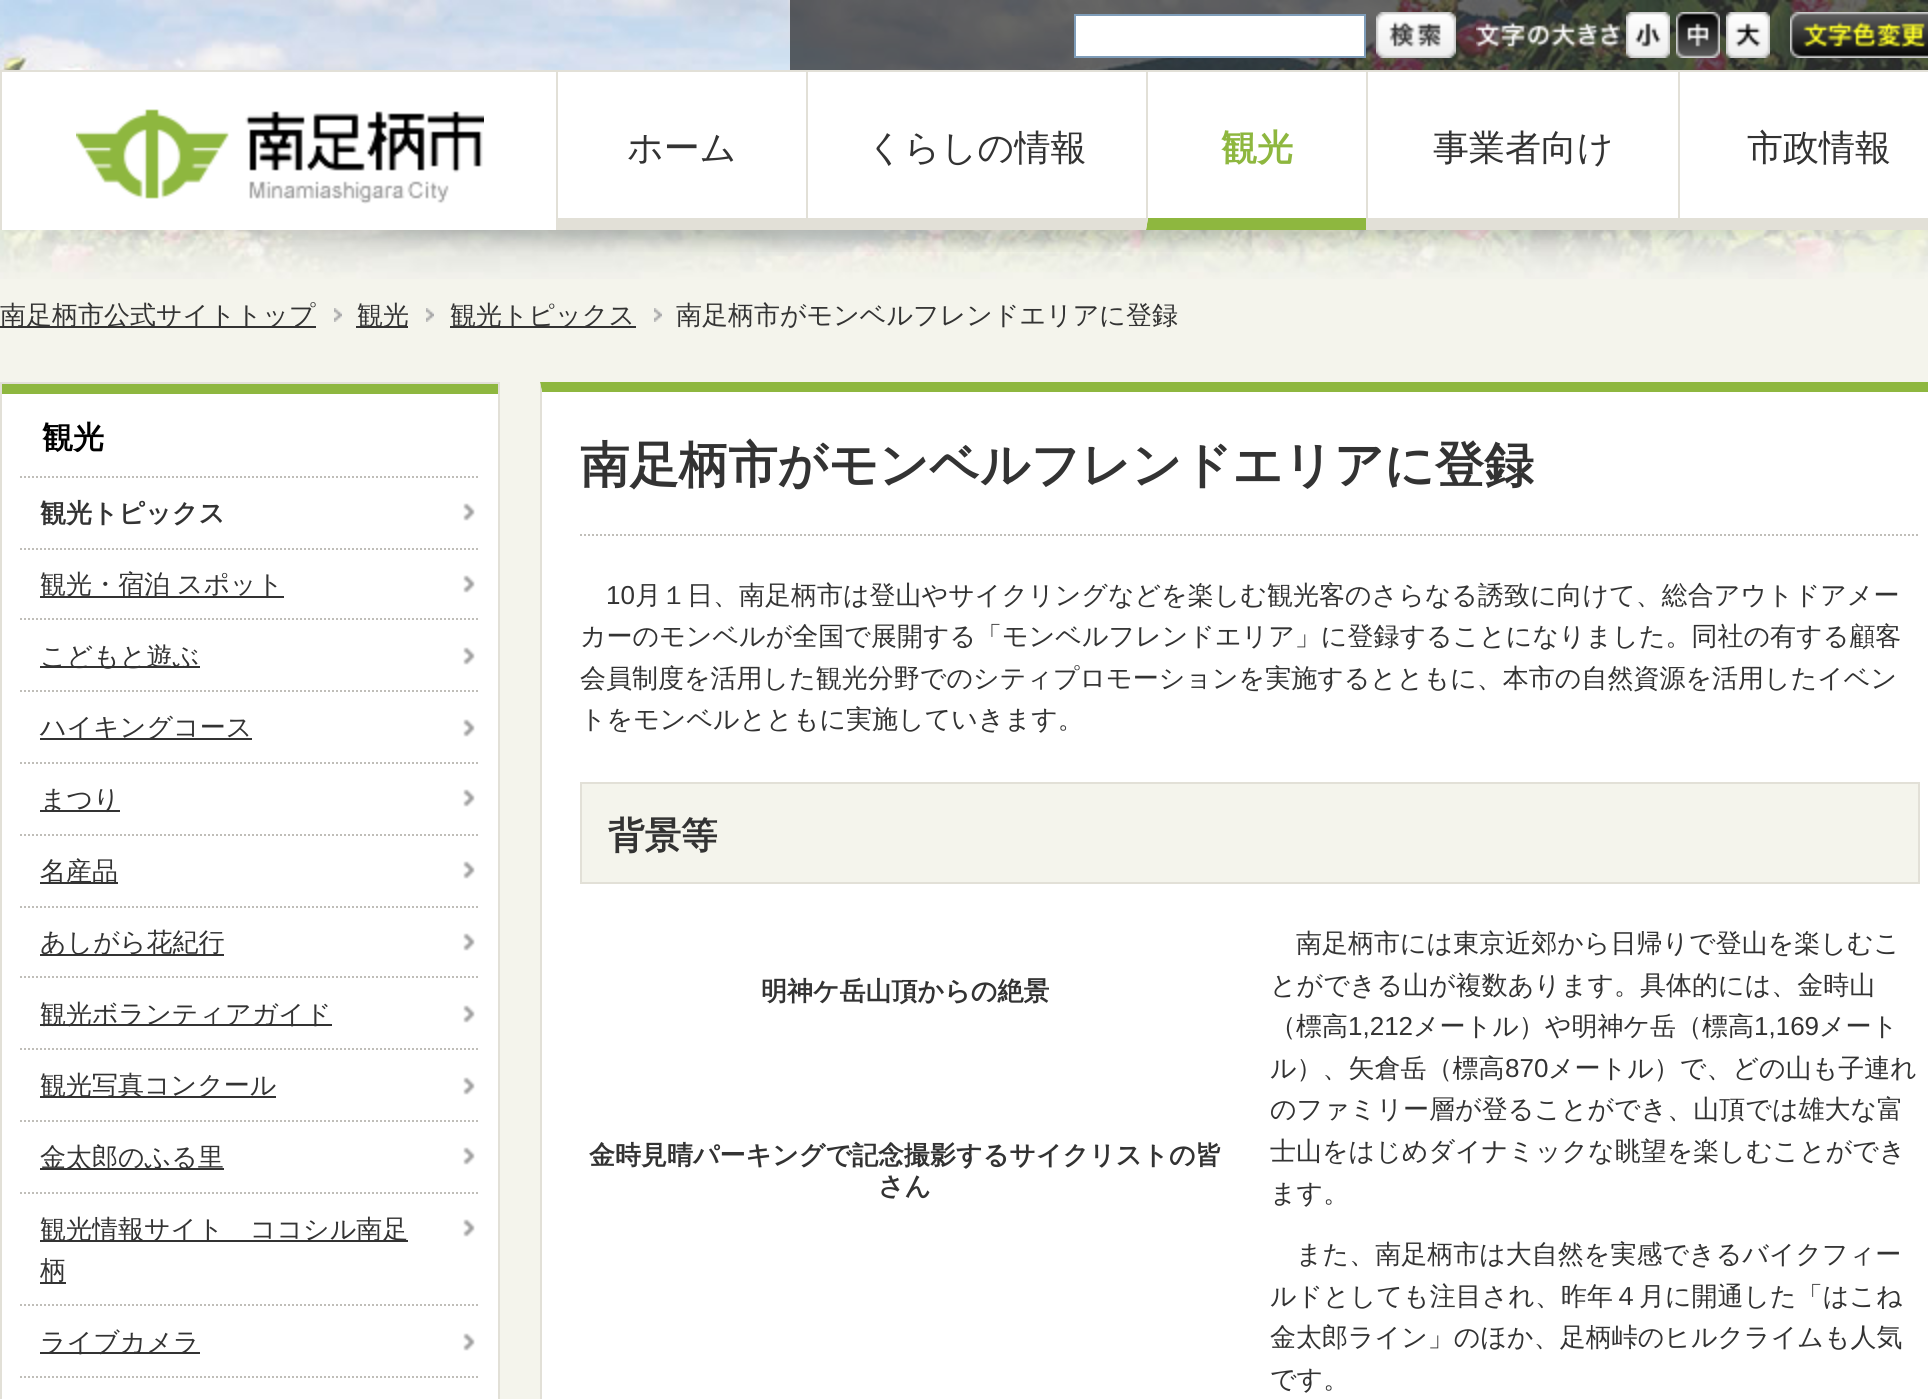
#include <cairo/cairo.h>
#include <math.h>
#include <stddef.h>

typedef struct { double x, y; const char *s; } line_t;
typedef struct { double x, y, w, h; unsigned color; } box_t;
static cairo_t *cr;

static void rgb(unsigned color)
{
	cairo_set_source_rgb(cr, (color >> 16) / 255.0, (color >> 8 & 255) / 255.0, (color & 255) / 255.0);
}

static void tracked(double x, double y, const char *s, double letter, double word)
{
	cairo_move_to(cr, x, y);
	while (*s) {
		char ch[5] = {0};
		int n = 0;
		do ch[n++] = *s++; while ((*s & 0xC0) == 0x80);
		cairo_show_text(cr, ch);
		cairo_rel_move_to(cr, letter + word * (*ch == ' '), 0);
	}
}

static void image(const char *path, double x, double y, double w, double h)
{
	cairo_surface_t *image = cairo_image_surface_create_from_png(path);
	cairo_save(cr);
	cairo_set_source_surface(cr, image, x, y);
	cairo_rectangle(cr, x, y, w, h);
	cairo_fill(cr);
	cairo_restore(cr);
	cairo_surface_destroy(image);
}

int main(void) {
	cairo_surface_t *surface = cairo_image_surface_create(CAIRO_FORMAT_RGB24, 1928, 1399);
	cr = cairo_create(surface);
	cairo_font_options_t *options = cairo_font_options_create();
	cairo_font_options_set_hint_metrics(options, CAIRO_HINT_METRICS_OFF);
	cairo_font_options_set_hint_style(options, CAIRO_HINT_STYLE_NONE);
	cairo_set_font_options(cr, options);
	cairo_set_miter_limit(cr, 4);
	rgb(0xf4f4ec);
	cairo_paint(cr);
	image("img/1.png", 0, 0, 1928, 279);
	image("img/2.png", 71, 230, 1788, 22);
	cairo_set_source_rgba(cr, 0, 0, 0, 0.6);
	cairo_rectangle(cr, 790, 0, 1138, 70);
	cairo_fill(cr);
	rgb(0xffffff);
	cairo_rectangle(cr, 1075, 15, 290, 42);
	cairo_fill_preserve(cr);
	rgb(0x7f9db9);
	cairo_stroke(cr);
	image("img/3.png", 1376, 12, 80, 46);
	image("img/4.png", 1476, 21, 144, 26);
	image("img/5.png", 1626, 12, 44, 46);
	image("img/6.png", 1676, 12, 44, 46);
	image("img/7.png", 1726, 12, 44, 46);
	image("img/8.png", 1790, 12, 138, 46);
	{
		static const box_t items[] = {
			{2, 72, 1926, 158, 0xffffff},
			{0, 70, 1928, 2, 0xe2e0d7},
			{0, 72, 2, 158, 0xe2e0d7},
		};
		for (size_t i = 0; i < sizeof items / sizeof *items; i++) {
			rgb(items[i].color);
			cairo_rectangle(cr, items[i].x, items[i].y, items[i].w, items[i].h);
			cairo_fill(cr);
		}
	}
	image("img/9.png", 76, 109, 408, 95);
	{
		static const box_t items[] = {
			{558, 218, 248, 12, 0xe2e0d7},
			{556, 72, 2, 158, 0xe2e0d7},
			{808, 218, 338, 12, 0xe2e0d7},
			{806, 72, 2, 158, 0xe2e0d7},
		};
		for (size_t i = 0; i < sizeof items / sizeof *items; i++) {
			rgb(items[i].color);
			cairo_rectangle(cr, items[i].x, items[i].y, items[i].w, items[i].h);
			cairo_fill(cr);
		}
	}
	rgb(0x8eb73f);
	cairo_new_path(cr);
	cairo_move_to(cr, 1366, 230);
	cairo_line_to(cr, 1146, 230);
	cairo_line_to(cr, 1148, 218);
	cairo_line_to(cr, 1366, 218);
	cairo_close_path(cr);
	cairo_fill(cr);
	rgb(0xe2e0d7);
	cairo_new_path(cr);
	cairo_move_to(cr, 1146, 230);
	cairo_line_to(cr, 1146, 72);
	cairo_line_to(cr, 1148, 72);
	cairo_line_to(cr, 1148, 218);
	cairo_close_path(cr);
	cairo_fill(cr);
	{
		static const box_t items[] = {
			{1368, 218, 310, 12, 0xe2e0d7},
			{1366, 72, 2, 158, 0xe2e0d7},
			{1680, 218, 248, 12, 0xe2e0d7},
			{1678, 72, 2, 158, 0xe2e0d7},
			{0, 326, 316, 2, 0x333333},
		};
		for (size_t i = 0; i < sizeof items / sizeof *items; i++) {
			rgb(items[i].color);
			cairo_rectangle(cr, items[i].x, items[i].y, items[i].w, items[i].h);
			cairo_fill(cr);
		}
	}
	image("img/10.png", 334, 308, 8, 14);
	cairo_rectangle(cr, 356, 326, 52, 2);
	cairo_fill(cr);
	image("img/10.png", 426, 308, 8, 14);
	cairo_rectangle(cr, 450, 326, 186, 2);
	cairo_fill(cr);
	image("img/10.png", 654, 308, 8, 14);
	rgb(0xffffff);
	cairo_rectangle(cr, 2, 394, 496, 1005);
	cairo_fill(cr);
	cairo_rectangle(cr, 1, 383, 498, 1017);
	rgb(0xe2e0d7);
	cairo_stroke(cr);
	rgb(0x8eb73f);
	cairo_rectangle(cr, 2, 384, 496, 10);
	cairo_fill(cr);
	image("img/11.png", 463, 503, 12, 18);
	cairo_new_path(cr);
	cairo_move_to(cr, 20, 477);
	cairo_line_to(cr, 480, 477);
	rgb(0xc0beb9);
	cairo_set_dash(cr, (double[]){2, 2}, 2, 0);
	cairo_stroke(cr);
	image("img/11.png", 463, 575, 12, 18);
	cairo_new_path(cr);
	cairo_move_to(cr, 20, 549);
	cairo_line_to(cr, 480, 549);
	cairo_stroke(cr);
	rgb(0x333333);
	cairo_rectangle(cr, 40, 596, 244, 2);
	cairo_fill(cr);
	image("img/11.png", 463, 647, 12, 18);
	cairo_new_path(cr);
	cairo_move_to(cr, 20, 619);
	cairo_line_to(cr, 480, 619);
	rgb(0xc0beb9);
	cairo_stroke(cr);
	rgb(0x333333);
	cairo_rectangle(cr, 40, 666, 160, 2);
	cairo_fill(cr);
	image("img/11.png", 463, 719, 12, 18);
	cairo_new_path(cr);
	cairo_move_to(cr, 20, 691);
	cairo_line_to(cr, 480, 691);
	rgb(0xc0beb9);
	cairo_stroke(cr);
	rgb(0x333333);
	cairo_rectangle(cr, 40, 738, 212, 2);
	cairo_fill(cr);
	image("img/11.png", 463, 789, 12, 18);
	cairo_new_path(cr);
	cairo_move_to(cr, 20, 763);
	cairo_line_to(cr, 480, 763);
	rgb(0xc0beb9);
	cairo_stroke(cr);
	rgb(0x333333);
	cairo_rectangle(cr, 40, 810, 80, 2);
	cairo_fill(cr);
	image("img/11.png", 463, 861, 12, 18);
	cairo_new_path(cr);
	cairo_move_to(cr, 20, 835);
	cairo_line_to(cr, 480, 835);
	rgb(0xc0beb9);
	cairo_stroke(cr);
	rgb(0x333333);
	cairo_rectangle(cr, 40, 882, 78, 2);
	cairo_fill(cr);
	image("img/11.png", 463, 933, 12, 18);
	cairo_new_path(cr);
	cairo_move_to(cr, 20, 907);
	cairo_line_to(cr, 480, 907);
	rgb(0xc0beb9);
	cairo_stroke(cr);
	rgb(0x333333);
	cairo_rectangle(cr, 40, 954, 184, 2);
	cairo_fill(cr);
	image("img/11.png", 463, 1005, 12, 18);
	cairo_new_path(cr);
	cairo_move_to(cr, 20, 977);
	cairo_line_to(cr, 480, 977);
	rgb(0xc0beb9);
	cairo_stroke(cr);
	rgb(0x333333);
	cairo_rectangle(cr, 40, 1024, 292, 2);
	cairo_fill(cr);
	image("img/11.png", 463, 1077, 12, 18);
	cairo_new_path(cr);
	cairo_move_to(cr, 20, 1049);
	cairo_line_to(cr, 480, 1049);
	rgb(0xc0beb9);
	cairo_stroke(cr);
	rgb(0x333333);
	cairo_rectangle(cr, 40, 1096, 236, 2);
	cairo_fill(cr);
	image("img/11.png", 463, 1147, 12, 18);
	cairo_new_path(cr);
	cairo_move_to(cr, 20, 1121);
	cairo_line_to(cr, 480, 1121);
	rgb(0xc0beb9);
	cairo_stroke(cr);
	rgb(0x333333);
	cairo_rectangle(cr, 40, 1168, 184, 2);
	cairo_fill(cr);
	image("img/11.png", 463, 1219, 12, 18);
	cairo_new_path(cr);
	cairo_move_to(cr, 20, 1193);
	cairo_line_to(cr, 480, 1193);
	rgb(0xc0beb9);
	cairo_stroke(cr);
	rgb(0x333333);
	cairo_rectangle(cr, 40, 1240, 368, 2);
	cairo_fill(cr);
	cairo_rectangle(cr, 40, 1282, 26, 2);
	cairo_fill(cr);
	image("img/11.png", 463, 1333, 12, 18);
	cairo_new_path(cr);
	cairo_move_to(cr, 20, 1305);
	cairo_line_to(cr, 480, 1305);
	rgb(0xc0beb9);
	cairo_stroke(cr);
	rgb(0x333333);
	cairo_rectangle(cr, 40, 1352, 160, 2);
	cairo_fill(cr);
	cairo_new_path(cr);
	cairo_move_to(cr, 20, 1377);
	cairo_line_to(cr, 480, 1377);
	rgb(0xc0beb9);
	cairo_stroke(cr);
	rgb(0xffffff);
	cairo_rectangle(cr, 542, 392, 1386, 1007);
	cairo_fill(cr);
	rgb(0x8eb73f);
	cairo_new_path(cr);
	cairo_move_to(cr, 540, 382);
	cairo_line_to(cr, 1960, 382);
	cairo_line_to(cr, 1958, 392);
	cairo_line_to(cr, 542, 392);
	cairo_close_path(cr);
	cairo_fill(cr);
	rgb(0xe2e0d7);
	cairo_new_path(cr);
	cairo_move_to(cr, 540, 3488);
	cairo_line_to(cr, 540, 382);
	cairo_line_to(cr, 542, 392);
	cairo_line_to(cr, 542, 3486);
	cairo_close_path(cr);
	cairo_fill(cr);
	cairo_new_path(cr);
	cairo_move_to(cr, 580, 535);
	cairo_line_to(cr, 1920, 535);
	rgb(0xc0beb9);
	cairo_stroke(cr);
	rgb(0xf4f4ec);
	cairo_rectangle(cr, 581, 783, 1338, 100);
	cairo_fill_preserve(cr);
	rgb(0xe2e0d7);
	cairo_set_dash(cr, NULL, 0, 0);
	cairo_stroke(cr);
	cairo_select_font_face(cr, "WenQuanYi Zen Hei Medium", CAIRO_FONT_SLANT_NORMAL, CAIRO_FONT_WEIGHT_NORMAL);
	cairo_set_font_size(cr, 36);
	rgb(0x333333);
	cairo_move_to(cr, 627, 160);
	cairo_show_text(cr, "ホーム");
	cairo_move_to(cr, 867, 160);
	cairo_show_text(cr, "くらしの情報");
	cairo_select_font_face(cr, "WenQuanYi Zen Hei", CAIRO_FONT_SLANT_NORMAL, CAIRO_FONT_WEIGHT_BOLD);
	rgb(0x8eb73f);
	cairo_move_to(cr, 1221, 160);
	cairo_show_text(cr, "観光");
	cairo_select_font_face(cr, "WenQuanYi Zen Hei Medium", CAIRO_FONT_SLANT_NORMAL, CAIRO_FONT_WEIGHT_NORMAL);
	rgb(0x333333);
	cairo_move_to(cr, 1433, 160);
	cairo_show_text(cr, "事業者向け");
	cairo_move_to(cr, 1747, 160);
	cairo_show_text(cr, "市政情報");
	cairo_set_font_size(cr, 26);
	{
		static const line_t items[] = {
			{0, 324, "南足柄市公式サイトトップ"},
			{357, 324, "観光"},
			{450, 324, "観光トピックス"},
			{676, 324, "南足柄市がモンベルフレンドエリアに登録"},
		};
		for (size_t i = 0; i < sizeof items / sizeof *items; i++) {
			cairo_move_to(cr, items[i].x, items[i].y);
			cairo_show_text(cr, items[i].s);
		}
	}
	cairo_select_font_face(cr, "WenQuanYi Zen Hei", CAIRO_FONT_SLANT_NORMAL, CAIRO_FONT_WEIGHT_BOLD);
	cairo_set_font_size(cr, 31);
	rgb(0x000000);
	cairo_move_to(cr, 42, 448);
	cairo_show_text(cr, "観光");
	cairo_set_font_size(cr, 26);
	rgb(0x333333);
	cairo_move_to(cr, 40, 522);
	cairo_show_text(cr, "観光トピックス");
	cairo_select_font_face(cr, "WenQuanYi Zen Hei Medium", CAIRO_FONT_SLANT_NORMAL, CAIRO_FONT_WEIGHT_NORMAL);
	tracked(40, 593, "観光・宿泊 スポット", 0, -1);
	{
		static const line_t items[] = {
			{40, 665, "こどもと遊ぶ"},
			{40, 736, "ハイキングコース"},
			{40, 808, "まつり"},
			{40, 880, "名産品"},
			{40, 951, "あしがら花紀行"},
			{40, 1023, "観光ボランティアガイド"},
			{40, 1094, "観光写真コンクール"},
			{40, 1166, "金太郎のふる里"},
			{40, 1238, "観光情報サイト　ココシル南足"},
			{40, 1279, "柄"},
			{40, 1351, "ライブカメラ"},
		};
		for (size_t i = 0; i < sizeof items / sizeof *items; i++) {
			cairo_move_to(cr, items[i].x, items[i].y);
			cairo_show_text(cr, items[i].s);
		}
	}
	cairo_select_font_face(cr, "WenQuanYi Zen Hei", CAIRO_FONT_SLANT_NORMAL, CAIRO_FONT_WEIGHT_BOLD);
	cairo_set_font_size(cr, 49.4);
	cairo_move_to(cr, 580, 482);
	cairo_show_text(cr, "南足柄市がモンベルフレンドエリアに登録");
	cairo_select_font_face(cr, "Liberation Sans", CAIRO_FONT_SLANT_NORMAL, CAIRO_FONT_WEIGHT_NORMAL);
	cairo_set_font_size(cr, 26);
	cairo_move_to(cr, 606, 604);
	cairo_show_text(cr, "10");
	cairo_select_font_face(cr, "WenQuanYi Zen Hei Medium", CAIRO_FONT_SLANT_NORMAL, CAIRO_FONT_WEIGHT_NORMAL);
	{
		static const line_t items[] = {
			{635, 604, "月１日、南足柄市は登山やサイクリングなどを楽しむ観光客のさらなる誘致に向けて、総合アウトドアメー"},
			{580, 645, "カーのモンベルが全国で展開する「モンベルフレンドエリア」に登録することになりました。同社の有する顧客"},
			{580, 687, "会員制度を活用した観光分野でのシティプロモーションを実施するとともに、本市の自然資源を活用したイベン"},
			{580, 728, "トをモンベルとともに実施していきます。"},
		};
		for (size_t i = 0; i < sizeof items / sizeof *items; i++) {
			cairo_move_to(cr, items[i].x, items[i].y);
			cairo_show_text(cr, items[i].s);
		}
	}
	cairo_select_font_face(cr, "WenQuanYi Zen Hei", CAIRO_FONT_SLANT_NORMAL, CAIRO_FONT_WEIGHT_BOLD);
	cairo_set_font_size(cr, 36.5);
	cairo_move_to(cr, 608, 848);
	cairo_show_text(cr, "背景等");
	cairo_set_font_size(cr, 26);
	{
		static const line_t items[] = {
			{761, 1000, "明神ケ岳山頂からの絶景"},
			{589, 1164, "金時見晴パーキングで記念撮影するサイクリストの皆"},
			{878, 1195, "さん"},
		};
		for (size_t i = 0; i < sizeof items / sizeof *items; i++) {
			cairo_move_to(cr, items[i].x, items[i].y);
			cairo_show_text(cr, items[i].s);
		}
	}
	cairo_select_font_face(cr, "WenQuanYi Zen Hei Medium", CAIRO_FONT_SLANT_NORMAL, CAIRO_FONT_WEIGHT_NORMAL);
	{
		static const line_t items[] = {
			{1296, 952, "南足柄市には東京近郊から日帰りで登山を楽しむこ"},
			{1270, 994, "とができる山が複数あります。具体的には、金時山"},
			{1270, 1035, "（標高"},
		};
		for (size_t i = 0; i < sizeof items / sizeof *items; i++) {
			cairo_move_to(cr, items[i].x, items[i].y);
			cairo_show_text(cr, items[i].s);
		}
	}
	cairo_select_font_face(cr, "Liberation Sans", CAIRO_FONT_SLANT_NORMAL, CAIRO_FONT_WEIGHT_NORMAL);
	cairo_move_to(cr, 1348, 1035);
	cairo_show_text(cr, "1,212");
	cairo_select_font_face(cr, "WenQuanYi Zen Hei Medium", CAIRO_FONT_SLANT_NORMAL, CAIRO_FONT_WEIGHT_NORMAL);
	cairo_move_to(cr, 1413, 1035);
	cairo_show_text(cr, "メートル）や明神ケ岳（標高");
	cairo_select_font_face(cr, "Liberation Sans", CAIRO_FONT_SLANT_NORMAL, CAIRO_FONT_WEIGHT_NORMAL);
	cairo_move_to(cr, 1754, 1035);
	cairo_show_text(cr, "1,169");
	cairo_select_font_face(cr, "WenQuanYi Zen Hei Medium", CAIRO_FONT_SLANT_NORMAL, CAIRO_FONT_WEIGHT_NORMAL);
	cairo_move_to(cr, 1819, 1035);
	cairo_show_text(cr, "メート");
	cairo_move_to(cr, 1270, 1077);
	cairo_show_text(cr, "ル）、矢倉岳（標高");
	cairo_select_font_face(cr, "Liberation Sans", CAIRO_FONT_SLANT_NORMAL, CAIRO_FONT_WEIGHT_NORMAL);
	cairo_move_to(cr, 1505, 1077);
	cairo_show_text(cr, "870");
	cairo_select_font_face(cr, "WenQuanYi Zen Hei Medium", CAIRO_FONT_SLANT_NORMAL, CAIRO_FONT_WEIGHT_NORMAL);
	{
		static const line_t items[] = {
			{1548, 1077, "メートル）で、どの山も子連れ"},
			{1270, 1118, "のファミリー層が登ることができ、山頂では雄大な富"},
			{1270, 1160, "士山をはじめダイナミックな眺望を楽しむことができ"},
			{1270, 1202, "ます。"},
			{1296, 1263, "また、南足柄市は大自然を実感できるバイクフィー"},
			{1270, 1305, "ルドとしても注目され、昨年４月に開通した「はこね"},
			{1270, 1346, "金太郎ライン」のほか、足柄峠のヒルクライムも人気"},
			{1270, 1388, "です。"},
		};
		for (size_t i = 0; i < sizeof items / sizeof *items; i++) {
			cairo_move_to(cr, items[i].x, items[i].y);
			cairo_show_text(cr, items[i].s);
		}
	}
	cairo_surface_write_to_png(surface, "page.png");
	cairo_font_options_destroy(options);
	cairo_destroy(cr);
	cairo_surface_destroy(surface);
	return 0;
}
